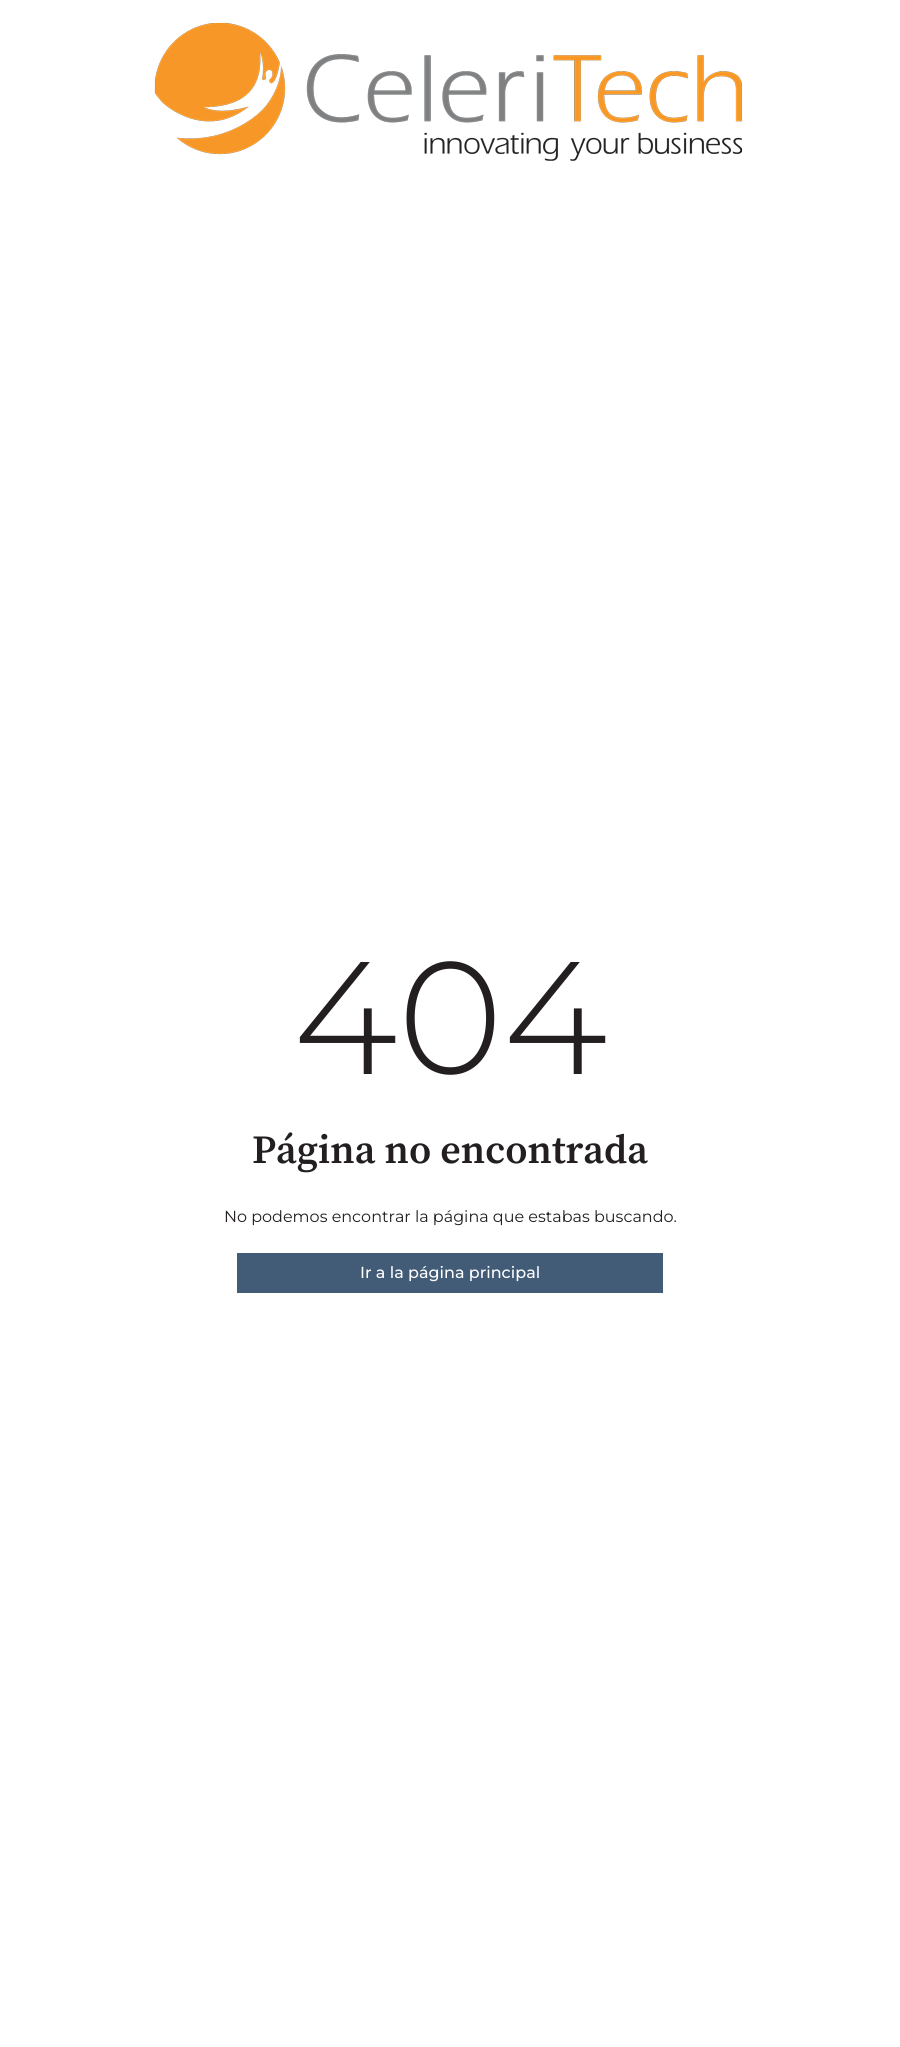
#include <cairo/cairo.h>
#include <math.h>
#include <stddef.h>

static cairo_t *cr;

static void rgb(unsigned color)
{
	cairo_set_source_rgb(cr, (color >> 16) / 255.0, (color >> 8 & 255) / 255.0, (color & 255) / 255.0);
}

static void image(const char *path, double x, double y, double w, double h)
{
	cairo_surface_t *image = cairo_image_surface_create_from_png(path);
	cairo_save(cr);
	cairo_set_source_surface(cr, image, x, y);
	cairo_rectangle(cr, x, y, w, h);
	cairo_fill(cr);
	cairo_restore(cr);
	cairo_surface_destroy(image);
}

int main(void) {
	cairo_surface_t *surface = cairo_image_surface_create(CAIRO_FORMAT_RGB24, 900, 2047);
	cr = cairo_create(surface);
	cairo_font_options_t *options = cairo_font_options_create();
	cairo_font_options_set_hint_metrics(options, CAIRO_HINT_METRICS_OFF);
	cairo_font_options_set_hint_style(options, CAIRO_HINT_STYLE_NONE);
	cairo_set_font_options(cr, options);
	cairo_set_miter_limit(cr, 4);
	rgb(0xffffff);
	cairo_paint(cr);
	image("img/1.png", 154, 22, 589, 139);
	rgb(0x425b76);
	cairo_rectangle(cr, 237, 1253, 426, 40);
	cairo_fill(cr);
	cairo_select_font_face(cr, "Montserrat Light", CAIRO_FONT_SLANT_NORMAL, CAIRO_FONT_WEIGHT_NORMAL);
	cairo_set_font_size(cr, 160);
	rgb(0x231f20);
	cairo_move_to(cr, 293, 1074);
	cairo_show_text(cr, "404");
	cairo_select_font_face(cr, "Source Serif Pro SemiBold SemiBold", CAIRO_FONT_SLANT_NORMAL, CAIRO_FONT_WEIGHT_NORMAL);
	cairo_set_font_size(cr, 40);
	cairo_move_to(cr, 252, 1163);
	cairo_show_text(cr, "Página no encontrada");
	cairo_select_font_face(cr, "Montserrat", CAIRO_FONT_SLANT_NORMAL, CAIRO_FONT_WEIGHT_NORMAL);
	cairo_set_font_size(cr, 16);
	cairo_move_to(cr, 224, 1222);
	cairo_show_text(cr, "No podemos encontrar la página que estabas buscando.");
	cairo_select_font_face(cr, "Montserrat Medium", CAIRO_FONT_SLANT_NORMAL, CAIRO_FONT_WEIGHT_NORMAL);
	rgb(0xffffff);
	cairo_move_to(cr, 360, 1278);
	cairo_show_text(cr, "Ir a la página principal");
	cairo_surface_write_to_png(surface, "page.png");
	cairo_font_options_destroy(options);
	cairo_destroy(cr);
	cairo_surface_destroy(surface);
	return 0;
}
